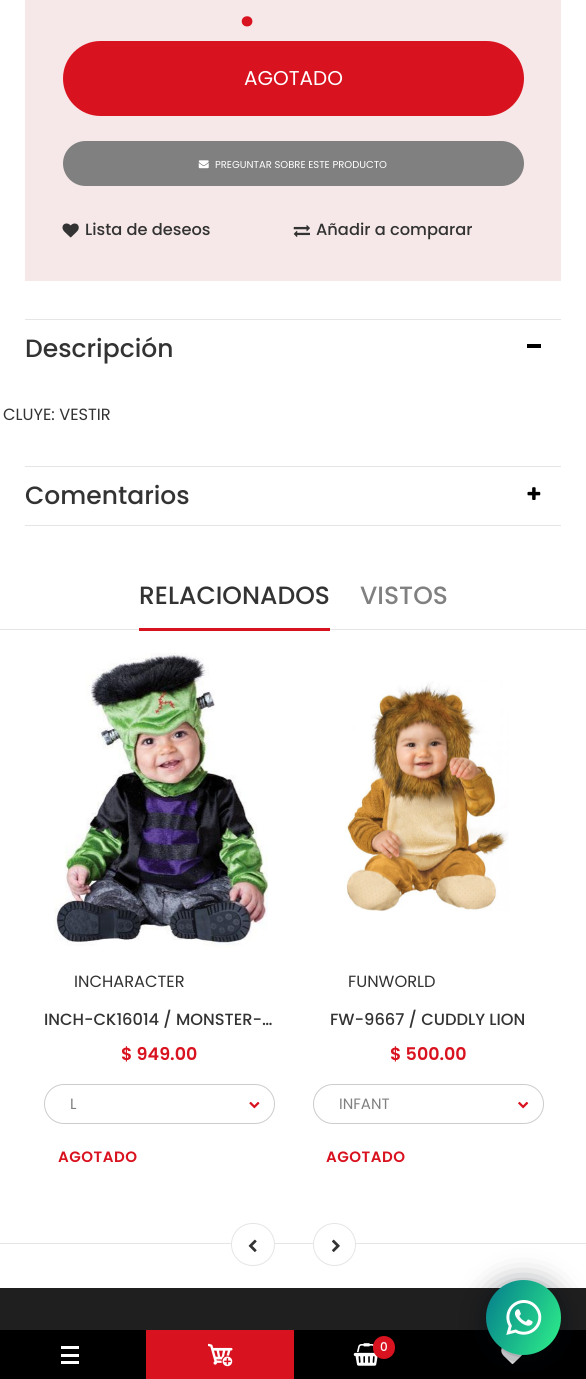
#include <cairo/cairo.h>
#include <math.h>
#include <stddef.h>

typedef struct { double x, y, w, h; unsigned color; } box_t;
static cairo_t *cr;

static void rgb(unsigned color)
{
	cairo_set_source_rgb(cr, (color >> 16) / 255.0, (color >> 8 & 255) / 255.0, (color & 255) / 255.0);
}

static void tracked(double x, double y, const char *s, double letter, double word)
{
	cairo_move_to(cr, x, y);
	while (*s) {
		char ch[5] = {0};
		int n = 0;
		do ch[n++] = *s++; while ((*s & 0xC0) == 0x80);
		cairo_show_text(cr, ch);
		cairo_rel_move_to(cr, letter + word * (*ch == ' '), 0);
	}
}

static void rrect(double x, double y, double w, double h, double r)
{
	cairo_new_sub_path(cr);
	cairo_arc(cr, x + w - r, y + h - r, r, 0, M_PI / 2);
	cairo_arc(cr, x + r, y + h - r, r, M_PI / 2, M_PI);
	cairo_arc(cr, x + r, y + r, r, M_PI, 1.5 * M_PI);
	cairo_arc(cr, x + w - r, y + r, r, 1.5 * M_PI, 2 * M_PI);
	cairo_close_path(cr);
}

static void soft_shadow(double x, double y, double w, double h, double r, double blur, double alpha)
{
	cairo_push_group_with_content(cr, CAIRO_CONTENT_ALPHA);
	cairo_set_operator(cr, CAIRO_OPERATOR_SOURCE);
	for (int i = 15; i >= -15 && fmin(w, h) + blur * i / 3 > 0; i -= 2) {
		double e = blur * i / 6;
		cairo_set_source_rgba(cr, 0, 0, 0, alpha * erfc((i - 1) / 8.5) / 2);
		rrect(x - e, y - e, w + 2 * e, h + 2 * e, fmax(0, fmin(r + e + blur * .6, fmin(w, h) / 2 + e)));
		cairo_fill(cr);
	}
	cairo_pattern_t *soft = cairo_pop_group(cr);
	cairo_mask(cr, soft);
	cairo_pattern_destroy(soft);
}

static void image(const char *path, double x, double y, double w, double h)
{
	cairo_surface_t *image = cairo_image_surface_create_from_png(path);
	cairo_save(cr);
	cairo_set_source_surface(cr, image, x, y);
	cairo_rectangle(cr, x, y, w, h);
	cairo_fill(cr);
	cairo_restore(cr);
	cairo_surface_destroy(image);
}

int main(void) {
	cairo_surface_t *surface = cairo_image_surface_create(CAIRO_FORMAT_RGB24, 586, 1379);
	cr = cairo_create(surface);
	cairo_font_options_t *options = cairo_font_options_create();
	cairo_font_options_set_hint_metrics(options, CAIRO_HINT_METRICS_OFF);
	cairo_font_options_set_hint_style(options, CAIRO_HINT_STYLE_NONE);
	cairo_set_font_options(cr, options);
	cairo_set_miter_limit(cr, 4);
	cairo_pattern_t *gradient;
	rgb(0xffffff);
	cairo_paint(cr);
	rgb(0xf6e8e8);
	cairo_rectangle(cr, 25, 0, 536, 281);
	cairo_fill(cr);
	rgb(0xd9121f);
	rrect(63, 41, 461, 75, 37.5);
	cairo_fill(cr);
	rgb(0x808080);
	rrect(63, 141, 461, 45, 22.5);
	cairo_fill(cr);
	image("img/1.png", 198, 160, 11, 9);
	image("img/2.png", 62, 223, 17, 15);
	image("img/3.png", 293, 225, 17, 13);
	{
		static const box_t items[] = {
			{25, 319, 536, 1, 0xe5e5e5},
			{527, 344, 14, 4, 0x000000},
			{25, 466, 536, 1, 0xe5e5e5},
			{25, 525, 536, 1, 0xe5e5e5},
		};
		for (size_t i = 0; i < sizeof items / sizeof *items; i++) {
			rgb(items[i].color);
			cairo_rectangle(cr, items[i].x, items[i].y, items[i].w, items[i].h);
			cairo_fill(cr);
		}
	}
	image("img/4.png", 527, 487, 14, 13);
	cairo_rectangle(cr, 0, 629, 586, 1);
	cairo_fill(cr);
	rgb(0xd9121f);
	cairo_rectangle(cr, 139, 628, 191, 3);
	cairo_fill(cr);
	image("img/5.png", 54, 653, 215, 295);
	rrect(44.5, 1084.5, 230, 39, 19.5);
	rgb(0xcccccc);
	cairo_set_line_width(cr, 1);
	cairo_stroke(cr);
	image("img/6.png", 249, 1101, 11, 8);
	image("img/7.png", 344, 681, 165, 230);
	rrect(313.5, 1084.5, 230, 39, 19.5);
	cairo_stroke(cr);
	image("img/8.png", 518, 1101, 11, 8);
	rgb(0xe5e5e5);
	cairo_rectangle(cr, 0, 1243, 586, 1);
	cairo_fill(cr);
	rgb(0xffffff);
	rrect(231.5, 1223.5, 43, 42, 21);
	cairo_fill_preserve(cr);
	rgb(0xe5e5e5);
	cairo_stroke(cr);
	image("img/9.png", 248, 1239, 9, 13);
	rgb(0xffffff);
	cairo_arc(cr, 334.5, 1244.5, 21, 0, 2 * M_PI);
	cairo_fill_preserve(cr);
	rgb(0xe5e5e5);
	cairo_stroke(cr);
	image("img/10.png", 332, 1239, 8, 13);
	{
		static const box_t items[] = {
			{0, 1288, 586, 42, 0x1f1f1f},
			{0, 1330, 146, 49, 0x000000},
			{61, 1354, 18, 3, 0xffffff},
			{61, 1346, 18, 3, 0xffffff},
			{61, 1361, 18, 3, 0xffffff},
			{146, 1330, 148, 49, 0xd9121f},
		};
		for (size_t i = 0; i < sizeof items / sizeof *items; i++) {
			rgb(items[i].color);
			cairo_rectangle(cr, items[i].x, items[i].y, items[i].w, items[i].h);
			cairo_fill(cr);
		}
	}
	image("img/11.png", 208, 1343, 25, 24);
	rgb(0x000000);
	cairo_rectangle(cr, 294, 1330, 292, 49);
	cairo_fill(cr);
	image("img/12.png", 353, 1343, 25, 23);
	rgb(0xd9121f);
	rrect(373, 1336, 22, 23, 11);
	cairo_fill(cr);
	image("img/13.png", 501, 1347, 22, 18);
	rgb(0x020610);
	soft_shadow(486, 1285, 75, 75, 37.5, 15, 0.5);
	gradient = cairo_pattern_create_linear(479, 1296, 569, 1339);
	cairo_pattern_add_color_stop_rgba(gradient, 0, 0.016, 0.486, 0.553, 1);
	cairo_pattern_add_color_stop_rgba(gradient, 1, 0.184, 0.949, 0.537, 1);
	cairo_set_source(cr, gradient);
	cairo_pattern_destroy(gradient);
	cairo_arc(cr, 523.5, 1317.5, 37.5, 0, 2 * M_PI);
	cairo_fill(cr);
	image("img/14.png", 506, 1300, 36, 35);
	cairo_select_font_face(cr, "Poppins SemiBold", CAIRO_FONT_SLANT_NORMAL, CAIRO_FONT_WEIGHT_NORMAL);
	cairo_set_font_size(cr, 62);
	rgb(0xd9121f);
	cairo_move_to(cr, 239, 26);
	cairo_show_text(cr, ".");
	cairo_select_font_face(cr, "Poppins", CAIRO_FONT_SLANT_NORMAL, CAIRO_FONT_WEIGHT_NORMAL);
	cairo_set_font_size(cr, 20);
	rgb(0xffffff);
	cairo_move_to(cr, 244, 85);
	cairo_show_text(cr, "AGOTADO");
	cairo_set_font_size(cr, 10);
	cairo_move_to(cr, 215, 168);
	cairo_show_text(cr, "PREGUNTAR SOBRE ESTE PRODUCTO");
	cairo_select_font_face(cr, "Poppins Medium", CAIRO_FONT_SLANT_NORMAL, CAIRO_FONT_WEIGHT_NORMAL);
	cairo_set_font_size(cr, 16.25);
	rgb(0x333333);
	cairo_move_to(cr, 85, 235);
	cairo_show_text(cr, "Lista de deseos");
	cairo_move_to(cr, 316, 235);
	cairo_show_text(cr, "Añadir a comparar");
	cairo_set_font_size(cr, 25);
	cairo_move_to(cr, 25, 357);
	cairo_show_text(cr, "Descripción");
	cairo_select_font_face(cr, "Poppins", CAIRO_FONT_SLANT_NORMAL, CAIRO_FONT_WEIGHT_NORMAL);
	cairo_set_font_size(cr, 16.25);
	cairo_move_to(cr, 3, 420);
	cairo_show_text(cr, "CLUYE: VESTIR");
	cairo_select_font_face(cr, "Poppins Medium", CAIRO_FONT_SLANT_NORMAL, CAIRO_FONT_WEIGHT_NORMAL);
	cairo_set_font_size(cr, 25);
	cairo_move_to(cr, 25, 504);
	cairo_show_text(cr, "Comentarios");
	cairo_move_to(cr, 139, 604);
	cairo_show_text(cr, "RELACIONADOS");
	rgb(0x808080);
	cairo_move_to(cr, 360, 604);
	cairo_show_text(cr, "VISTOS");
	cairo_select_font_face(cr, "Poppins", CAIRO_FONT_SLANT_NORMAL, CAIRO_FONT_WEIGHT_NORMAL);
	cairo_set_font_size(cr, 16.25);
	rgb(0x333333);
	cairo_move_to(cr, 74, 987);
	cairo_show_text(cr, "INCHARACTER");
	cairo_select_font_face(cr, "Poppins Medium", CAIRO_FONT_SLANT_NORMAL, CAIRO_FONT_WEIGHT_NORMAL);
	cairo_move_to(cr, 44, 1025);
	cairo_show_text(cr, "INCH-CK16014 / MONSTER-…");
	cairo_select_font_face(cr, "Poppins SemiBold", CAIRO_FONT_SLANT_NORMAL, CAIRO_FONT_WEIGHT_NORMAL);
	cairo_set_font_size(cr, 17.5);
	rgb(0xd9121f);
	cairo_move_to(cr, 121, 1060);
	cairo_show_text(cr, "$ 949.00");
	cairo_select_font_face(cr, "Poppins", CAIRO_FONT_SLANT_NORMAL, CAIRO_FONT_WEIGHT_NORMAL);
	cairo_set_font_size(cr, 15);
	rgb(0x808080);
	cairo_move_to(cr, 70, 1109);
	cairo_show_text(cr, "L");
	cairo_select_font_face(cr, "Poppins SemiBold", CAIRO_FONT_SLANT_NORMAL, CAIRO_FONT_WEIGHT_NORMAL);
	rgb(0xd9121f);
	tracked(58, 1162, "AGOTADO", 0.5, 0);
	cairo_select_font_face(cr, "Poppins", CAIRO_FONT_SLANT_NORMAL, CAIRO_FONT_WEIGHT_NORMAL);
	cairo_set_font_size(cr, 16.25);
	rgb(0x333333);
	cairo_move_to(cr, 348, 987);
	cairo_show_text(cr, "FUNWORLD");
	cairo_select_font_face(cr, "Poppins Medium", CAIRO_FONT_SLANT_NORMAL, CAIRO_FONT_WEIGHT_NORMAL);
	cairo_move_to(cr, 330, 1025);
	cairo_show_text(cr, "FW-9667 / CUDDLY LION");
	cairo_select_font_face(cr, "Poppins SemiBold", CAIRO_FONT_SLANT_NORMAL, CAIRO_FONT_WEIGHT_NORMAL);
	cairo_set_font_size(cr, 17.5);
	rgb(0xd9121f);
	cairo_move_to(cr, 390, 1060);
	cairo_show_text(cr, "$ 500.00");
	cairo_select_font_face(cr, "Poppins", CAIRO_FONT_SLANT_NORMAL, CAIRO_FONT_WEIGHT_NORMAL);
	cairo_set_font_size(cr, 15);
	rgb(0x808080);
	cairo_move_to(cr, 339, 1109);
	cairo_show_text(cr, "INFANT");
	cairo_select_font_face(cr, "Poppins SemiBold", CAIRO_FONT_SLANT_NORMAL, CAIRO_FONT_WEIGHT_NORMAL);
	rgb(0xd9121f);
	tracked(326, 1162, "AGOTADO", 0.5, 0);
	cairo_select_font_face(cr, "Poppins Medium", CAIRO_FONT_SLANT_NORMAL, CAIRO_FONT_WEIGHT_NORMAL);
	cairo_set_font_size(cr, 12);
	rgb(0xffffff);
	cairo_move_to(cr, 380, 1351);
	cairo_show_text(cr, "0");
	cairo_surface_write_to_png(surface, "page.png");
	cairo_font_options_destroy(options);
	cairo_destroy(cr);
	cairo_surface_destroy(surface);
	return 0;
}
